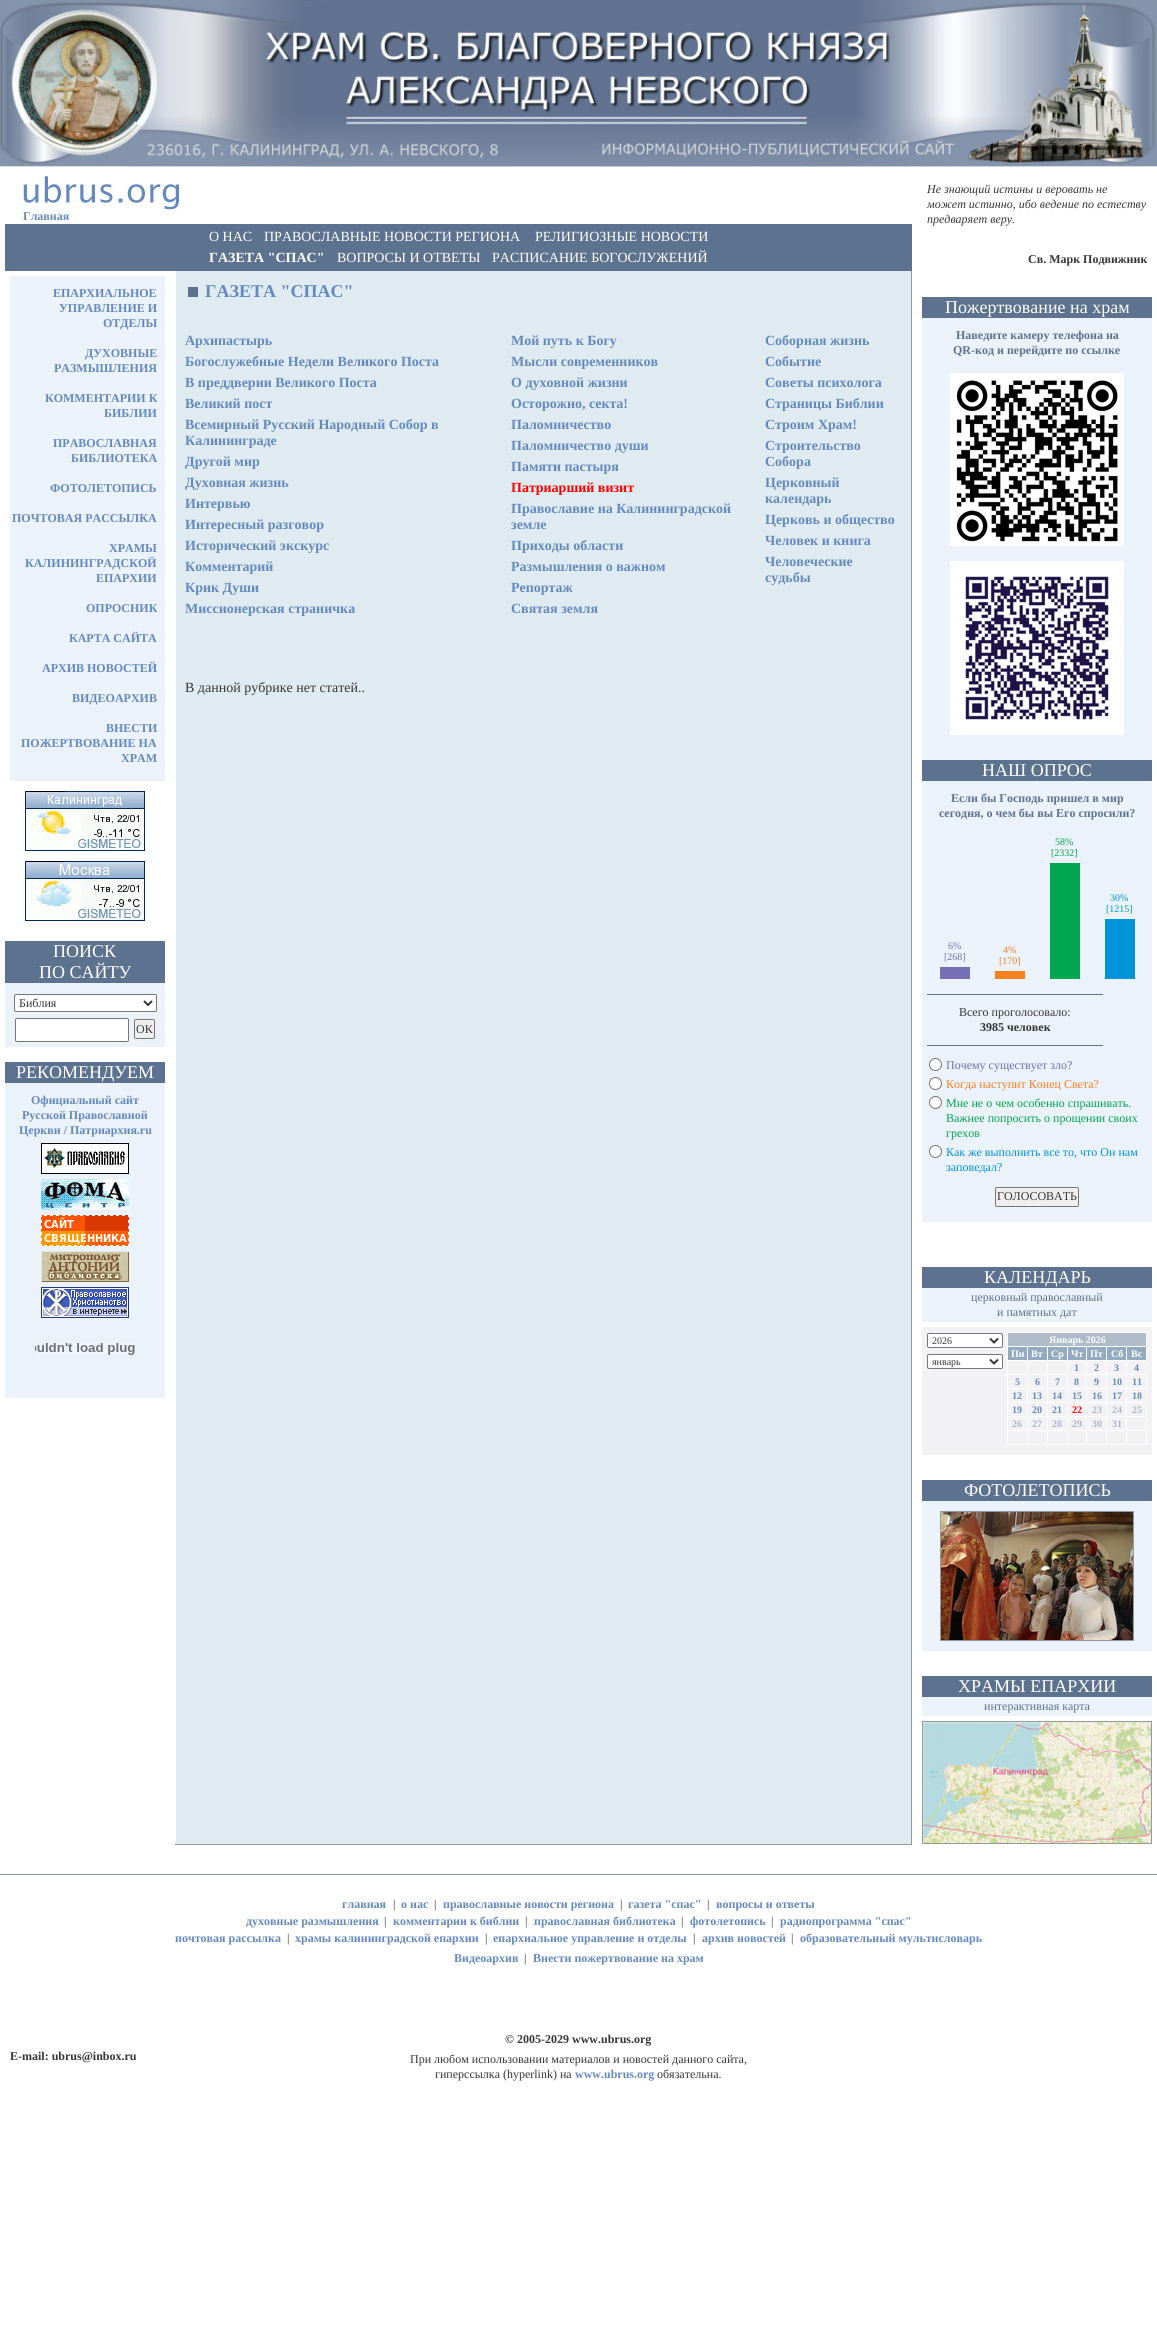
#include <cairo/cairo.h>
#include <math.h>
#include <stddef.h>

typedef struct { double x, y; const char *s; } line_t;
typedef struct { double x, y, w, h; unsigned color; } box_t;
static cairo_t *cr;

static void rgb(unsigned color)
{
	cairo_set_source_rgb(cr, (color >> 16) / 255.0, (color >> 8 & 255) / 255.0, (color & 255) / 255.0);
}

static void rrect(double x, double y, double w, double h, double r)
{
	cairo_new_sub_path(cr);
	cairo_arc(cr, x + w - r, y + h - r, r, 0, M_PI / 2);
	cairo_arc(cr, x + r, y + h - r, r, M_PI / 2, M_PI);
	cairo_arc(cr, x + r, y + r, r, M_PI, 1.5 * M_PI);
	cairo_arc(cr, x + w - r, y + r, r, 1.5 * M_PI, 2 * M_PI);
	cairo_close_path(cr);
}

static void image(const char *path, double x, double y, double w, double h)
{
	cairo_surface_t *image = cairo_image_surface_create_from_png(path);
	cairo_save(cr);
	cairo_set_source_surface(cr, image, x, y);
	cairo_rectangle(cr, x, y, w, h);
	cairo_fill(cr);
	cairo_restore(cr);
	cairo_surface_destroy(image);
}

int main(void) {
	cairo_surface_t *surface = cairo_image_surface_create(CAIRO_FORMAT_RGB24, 1157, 2352);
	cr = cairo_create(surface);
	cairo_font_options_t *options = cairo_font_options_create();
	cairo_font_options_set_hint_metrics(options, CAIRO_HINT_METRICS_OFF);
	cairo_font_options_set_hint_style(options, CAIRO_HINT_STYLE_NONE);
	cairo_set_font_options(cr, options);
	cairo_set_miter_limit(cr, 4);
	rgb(0xffffff);
	cairo_paint(cr);
	image("img/1.png", 0, 0, 1157, 167);
	rgb(0xe0ebf1);
	cairo_rectangle(cr, 176, 271, 735, 1573);
	cairo_fill(cr);
	rgb(0x919a9f);
	cairo_rectangle(cr, 911, 271, 1, 1573);
	cairo_fill(cr);
	image("img/2.png", 21, 175, 160, 39);
	{
		static const box_t items[] = {
			{5, 224, 907, 47, 0x5d728f},
			{10, 276, 155, 10, 0xebf2fa},
			{10, 286, 155, 60, 0xebf2fa},
			{10, 346, 155, 45, 0xebf2fa},
			{10, 391, 155, 45, 0xebf2fa},
			{10, 436, 155, 45, 0xebf2fa},
			{10, 481, 155, 30, 0xebf2fa},
			{10, 511, 155, 30, 0xebf2fa},
			{10, 541, 155, 60, 0xebf2fa},
			{10, 601, 155, 30, 0xebf2fa},
			{10, 631, 155, 30, 0xebf2fa},
			{10, 661, 155, 30, 0xebf2fa},
			{10, 691, 155, 30, 0xebf2fa},
			{10, 721, 155, 60, 0xebf2fa},
		};
		for (size_t i = 0; i < sizeof items / sizeof *items; i++) {
			rgb(items[i].color);
			cairo_rectangle(cr, items[i].x, items[i].y, items[i].w, items[i].h);
			cairo_fill(cr);
		}
	}
	image("img/3.png", 25, 791, 120, 60);
	image("img/4.png", 25, 861, 120, 60);
	rgb(0x5d728f);
	cairo_rectangle(cr, 5, 941, 160, 42);
	cairo_fill(cr);
	rgb(0xebf2fa);
	cairo_rectangle(cr, 5, 983, 160, 64);
	cairo_fill(cr);
	rgb(0xffffff);
	rrect(14.5, 994.5, 142, 17, 1.5);
	cairo_fill_preserve(cr);
	rgb(0x767676);
	cairo_set_line_width(cr, 1);
	cairo_stroke(cr);
	cairo_new_path(cr);
	cairo_move_to(cr, 144, 1001);
	cairo_line_to(cr, 148, 1005);
	cairo_line_to(cr, 152, 1001);
	rgb(0x363636);
	cairo_set_line_width(cr, 2);
	cairo_stroke(cr);
	rgb(0xffffff);
	rrect(15.5, 1018.5, 113, 23, 1.5);
	cairo_fill_preserve(cr);
	rgb(0x767676);
	cairo_set_line_width(cr, 1);
	cairo_stroke(cr);
	rgb(0xefefef);
	rrect(134.5, 1019.5, 20, 19, 1.5);
	cairo_fill_preserve(cr);
	rgb(0x767676);
	cairo_stroke(cr);
	rgb(0x5d728f);
	cairo_rectangle(cr, 5, 1062, 160, 21);
	cairo_fill(cr);
	rgb(0xebf2fa);
	cairo_rectangle(cr, 5, 1083, 160, 315);
	cairo_fill(cr);
	image("img/5.png", 41, 1143, 88, 31);
	image("img/6.png", 41, 1179, 88, 31);
	image("img/7.png", 41, 1215, 88, 31);
	image("img/8.png", 41, 1251, 88, 31);
	image("img/9.png", 41, 1287, 88, 31);
	image("img/10.png", 35, 1343, 100, 12);
	{
		static const box_t items[] = {
			{188, 287, 10, 10, 0x5d728e},
			{922, 297, 230, 21, 0x5d728f},
			{922, 318, 230, 442, 0xebf2fa},
		};
		for (size_t i = 0; i < sizeof items / sizeof *items; i++) {
			rgb(items[i].color);
			cairo_rectangle(cr, items[i].x, items[i].y, items[i].w, items[i].h);
			cairo_fill(cr);
		}
	}
	image("img/11.png", 950, 373, 174, 173);
	image("img/12.png", 950, 561, 174, 174);
	{
		static const box_t items[] = {
			{922, 760, 230, 21, 0x5d728f},
			{922, 781, 230, 441, 0xebf2fa},
			{1050, 863, 30, 116, 0x00a650},
			{1105, 919, 30, 60, 0x0095d9},
			{940, 967, 30, 12, 0x766fb3},
			{995, 971, 30, 8, 0xf6821f},
			{927, 994, 176, 1, 0x5d728f},
			{927, 1045, 176, 1, 0x5d728f},
		};
		for (size_t i = 0; i < sizeof items / sizeof *items; i++) {
			rgb(items[i].color);
			cairo_rectangle(cr, items[i].x, items[i].y, items[i].w, items[i].h);
			cairo_fill(cr);
		}
	}
	rgb(0xffffff);
	cairo_arc(cr, 935.5, 1064.5, 6, 0, 2 * M_PI);
	cairo_fill_preserve(cr);
	rgb(0x767676);
	cairo_stroke(cr);
	rgb(0xffffff);
	cairo_arc(cr, 935.5, 1083.5, 6, 0, 2 * M_PI);
	cairo_fill_preserve(cr);
	rgb(0x767676);
	cairo_stroke(cr);
	rgb(0xffffff);
	cairo_arc(cr, 935.5, 1102.5, 6, 0, 2 * M_PI);
	cairo_fill_preserve(cr);
	rgb(0x767676);
	cairo_stroke(cr);
	rgb(0xffffff);
	cairo_arc(cr, 935.5, 1151.5, 6, 0, 2 * M_PI);
	cairo_fill_preserve(cr);
	rgb(0x767676);
	cairo_stroke(cr);
	rgb(0xefefef);
	rrect(995.5, 1187.5, 83, 19, 1.5);
	cairo_fill_preserve(cr);
	rgb(0x767676);
	cairo_stroke(cr);
	{
		static const box_t items[] = {
			{922, 1267, 230, 21, 0x5d728f},
			{922, 1288, 230, 34, 0xebf2fa},
			{922, 1327, 230, 128, 0xf2f2f4},
		};
		for (size_t i = 0; i < sizeof items / sizeof *items; i++) {
			rgb(items[i].color);
			cairo_rectangle(cr, items[i].x, items[i].y, items[i].w, items[i].h);
			cairo_fill(cr);
		}
	}
	rgb(0xffffff);
	rrect(927.5, 1333.5, 75, 14, 1.5);
	cairo_fill_preserve(cr);
	rgb(0x767676);
	cairo_stroke(cr);
	cairo_new_path(cr);
	cairo_move_to(cr, 990, 1338.5);
	cairo_line_to(cr, 994, 1342.5);
	cairo_line_to(cr, 998, 1338.5);
	rgb(0x363636);
	cairo_set_line_width(cr, 2);
	cairo_stroke(cr);
	rgb(0xffffff);
	rrect(927.5, 1354.5, 75, 14, 1.5);
	cairo_fill_preserve(cr);
	rgb(0x767676);
	cairo_set_line_width(cr, 1);
	cairo_stroke(cr);
	cairo_new_path(cr);
	cairo_move_to(cr, 990, 1359.5);
	cairo_line_to(cr, 994, 1363.5);
	cairo_line_to(cr, 998, 1359.5);
	rgb(0x363636);
	cairo_set_line_width(cr, 2);
	cairo_stroke(cr);
	{
		static const box_t items[] = {
			{1007, 1332, 140, 1, 0xffffff},
			{1146, 1332, 1, 113, 0xffffff},
			{1007, 1444, 140, 1, 0xffffff},
			{1007, 1332, 1, 113, 0xffffff},
			{1008, 1333, 138, 13, 0xafbbc9},
			{1008, 1347, 19, 13, 0x94aabf},
			{1126, 1346, 21, 1, 0xffffff},
			{1126, 1360, 21, 1, 0xffffff},
			{1126, 1374, 21, 1, 0xffffff},
			{1126, 1388, 21, 1, 0xffffff},
			{1126, 1402, 21, 1, 0xffffff},
			{1126, 1416, 21, 1, 0xffffff},
			{1126, 1430, 21, 1, 0xffffff},
			{1126, 1430, 1, 15, 0xffffff},
			{1106, 1430, 21, 1, 0xffffff},
			{1126, 1416, 1, 15, 0xffffff},
			{1106, 1416, 21, 1, 0xffffff},
			{1126, 1402, 1, 15, 0xffffff},
			{1106, 1402, 21, 1, 0xffffff},
			{1126, 1388, 1, 15, 0xffffff},
			{1106, 1388, 21, 1, 0xffffff},
			{1126, 1374, 1, 15, 0xffffff},
			{1106, 1374, 21, 1, 0xffffff},
			{1126, 1360, 1, 15, 0xffffff},
			{1106, 1360, 21, 1, 0xffffff},
			{1126, 1346, 1, 15, 0xffffff},
			{1106, 1346, 21, 1, 0xffffff},
			{1106, 1430, 1, 15, 0xffffff},
			{1086, 1430, 21, 1, 0xffffff},
			{1106, 1416, 1, 15, 0xffffff},
			{1086, 1416, 21, 1, 0xffffff},
			{1106, 1402, 1, 15, 0xffffff},
			{1086, 1402, 21, 1, 0xffffff},
			{1106, 1388, 1, 15, 0xffffff},
			{1086, 1388, 21, 1, 0xffffff},
			{1106, 1374, 1, 15, 0xffffff},
			{1086, 1374, 21, 1, 0xffffff},
			{1106, 1360, 1, 15, 0xffffff},
			{1086, 1360, 21, 1, 0xffffff},
			{1106, 1346, 1, 15, 0xffffff},
			{1086, 1346, 21, 1, 0xffffff},
			{1086, 1430, 1, 15, 0xffffff},
			{1067, 1430, 20, 1, 0xffffff},
			{1086, 1416, 1, 15, 0xffffff},
			{1067, 1416, 20, 1, 0xffffff},
			{1086, 1402, 1, 15, 0xffffff},
			{1067, 1402, 20, 1, 0xffffff},
			{1086, 1388, 1, 15, 0xffffff},
			{1067, 1388, 20, 1, 0xffffff},
			{1086, 1374, 1, 15, 0xffffff},
			{1067, 1374, 20, 1, 0xffffff},
			{1086, 1360, 1, 15, 0xffffff},
			{1067, 1360, 20, 1, 0xffffff},
			{1086, 1346, 1, 15, 0xffffff},
			{1067, 1346, 20, 1, 0xffffff},
			{1067, 1430, 1, 15, 0xffffff},
			{1047, 1430, 21, 1, 0xffffff},
			{1067, 1416, 1, 15, 0xffffff},
			{1047, 1416, 21, 1, 0xffffff},
			{1067, 1402, 1, 15, 0xffffff},
			{1047, 1402, 21, 1, 0xffffff},
			{1067, 1388, 1, 15, 0xffffff},
			{1047, 1388, 21, 1, 0xffffff},
			{1067, 1374, 1, 15, 0xffffff},
			{1047, 1374, 21, 1, 0xffffff},
			{1067, 1360, 1, 15, 0xffffff},
			{1047, 1360, 21, 1, 0xffffff},
			{1067, 1346, 1, 15, 0xffffff},
			{1047, 1346, 21, 1, 0xffffff},
			{1047, 1430, 1, 15, 0xffffff},
			{1027, 1430, 21, 1, 0xffffff},
			{1047, 1416, 1, 15, 0xffffff},
			{1027, 1416, 21, 1, 0xffffff},
			{1047, 1402, 1, 15, 0xffffff},
			{1027, 1402, 21, 1, 0xffffff},
			{1047, 1388, 1, 15, 0xffffff},
			{1027, 1388, 21, 1, 0xffffff},
			{1047, 1374, 1, 15, 0xffffff},
			{1027, 1374, 21, 1, 0xffffff},
			{1047, 1360, 1, 15, 0xffffff},
			{1027, 1360, 21, 1, 0xffffff},
			{1047, 1346, 1, 15, 0xffffff},
			{1027, 1346, 21, 1, 0xffffff},
			{1027, 1430, 1, 15, 0xffffff},
			{1007, 1430, 21, 1, 0xffffff},
			{1027, 1416, 1, 15, 0xffffff},
			{1007, 1416, 21, 1, 0xffffff},
			{1027, 1402, 1, 15, 0xffffff},
			{1007, 1402, 21, 1, 0xffffff},
			{1027, 1388, 1, 15, 0xffffff},
			{1007, 1388, 21, 1, 0xffffff},
			{1027, 1374, 1, 15, 0xffffff},
			{1007, 1374, 21, 1, 0xffffff},
			{1027, 1360, 1, 15, 0xffffff},
			{1007, 1360, 21, 1, 0xffffff},
			{1027, 1346, 1, 15, 0xffffff},
			{1007, 1346, 21, 1, 0xffffff},
			{1028, 1347, 19, 13, 0x94aabf},
			{1048, 1347, 19, 13, 0x94aabf},
			{1068, 1347, 18, 13, 0x94aabf},
			{1087, 1347, 19, 13, 0x94aabf},
			{1107, 1347, 19, 13, 0x94aabf},
			{1127, 1347, 19, 13, 0x94aabf},
			{922, 1480, 230, 21, 0x5d728f},
			{922, 1501, 230, 150, 0xebf2fa},
		};
		for (size_t i = 0; i < sizeof items / sizeof *items; i++) {
			rgb(items[i].color);
			cairo_rectangle(cr, items[i].x, items[i].y, items[i].w, items[i].h);
			cairo_fill(cr);
		}
	}
	cairo_rectangle(cr, 940.5, 1511.5, 193, 129);
	rgb(0x919a9f);
	cairo_set_line_width(cr, 1);
	cairo_stroke(cr);
	image("img/13.png", 941, 1512, 192, 128);
	rgb(0x5d728f);
	cairo_rectangle(cr, 922, 1676, 230, 21);
	cairo_fill(cr);
	rgb(0xebf2fa);
	cairo_rectangle(cr, 922, 1697, 230, 19);
	cairo_fill(cr);
	cairo_rectangle(cr, 922.5, 1721.5, 229, 122);
	rgb(0x919a9f);
	cairo_stroke(cr);
	image("img/14.png", 923, 1722, 228, 121);
	cairo_rectangle(cr, 175, 1844, 737, 1);
	cairo_fill(cr);
	rgb(0x8594ad);
	cairo_rectangle(cr, 0, 1874, 1157, 1);
	cairo_fill(cr);
	cairo_select_font_face(cr, "Liberation Serif", CAIRO_FONT_SLANT_NORMAL, CAIRO_FONT_WEIGHT_BOLD);
	cairo_set_font_size(cr, 12);
	rgb(0x6489bd);
	cairo_move_to(cr, 23, 220);
	cairo_show_text(cr, "Главная");
	cairo_select_font_face(cr, "Liberation Serif", CAIRO_FONT_SLANT_NORMAL, CAIRO_FONT_WEIGHT_NORMAL);
	cairo_set_font_size(cr, 14);
	rgb(0xffffff);
	{
		static const line_t items[] = {
			{209, 241, "О НАС"},
			{264, 241, "ПРАВОСЛАВНЫЕ НОВОСТИ РЕГИОНА"},
			{535, 241, "РЕЛИГИОЗНЫЕ НОВОСТИ"},
		};
		for (size_t i = 0; i < sizeof items / sizeof *items; i++) {
			cairo_move_to(cr, items[i].x, items[i].y);
			cairo_show_text(cr, items[i].s);
		}
	}
	cairo_select_font_face(cr, "Liberation Serif", CAIRO_FONT_SLANT_NORMAL, CAIRO_FONT_WEIGHT_BOLD);
	cairo_move_to(cr, 209, 262);
	cairo_show_text(cr, "ГАЗЕТА \"СПАС\"");
	cairo_select_font_face(cr, "Liberation Serif", CAIRO_FONT_SLANT_NORMAL, CAIRO_FONT_WEIGHT_NORMAL);
	cairo_move_to(cr, 337, 262);
	cairo_show_text(cr, "ВОПРОСЫ И ОТВЕТЫ");
	cairo_move_to(cr, 492, 262);
	cairo_show_text(cr, "РАСПИСАНИЕ БОГОСЛУЖЕНИЙ");
	cairo_select_font_face(cr, "Liberation Serif", CAIRO_FONT_SLANT_NORMAL, CAIRO_FONT_WEIGHT_BOLD);
	cairo_set_font_size(cr, 12);
	rgb(0x6489bd);
	{
		static const line_t items[] = {
			{53, 297, "ЕПАРХИАЛЬНОЕ"},
			{59, 312, "УПРАВЛЕНИЕ И"},
			{103, 327, "ОТДЕЛЫ"},
			{85, 357, "ДУХОВНЫЕ"},
			{54, 372, "РАЗМЫШЛЕНИЯ"},
			{45, 402, "КОММЕНТАРИИ К"},
			{104, 417, "БИБЛИИ"},
			{53, 447, "ПРАВОСЛАВНАЯ"},
			{71, 462, "БИБЛИОТЕКА"},
			{50, 492, "ФОТОЛЕТОПИСЬ"},
			{12, 522, "ПОЧТОВАЯ РАССЫЛКА"},
			{109, 552, "ХРАМЫ"},
			{25, 567, "КАЛИНИНГРАДСКОЙ"},
			{96, 582, "ЕПАРХИИ"},
			{86, 612, "ОПРОСНИК"},
			{69, 642, "КАРТА САЙТА"},
			{42, 672, "АРХИВ НОВОСТЕЙ"},
			{72, 702, "ВИДЕОАРХИВ"},
			{106, 732, "ВНЕСТИ"},
			{21, 747, "ПОЖЕРТВОВАНИЕ НА"},
			{121, 762, "ХРАМ"},
		};
		for (size_t i = 0; i < sizeof items / sizeof *items; i++) {
			cairo_move_to(cr, items[i].x, items[i].y);
			cairo_show_text(cr, items[i].s);
		}
	}
	cairo_select_font_face(cr, "Liberation Serif", CAIRO_FONT_SLANT_NORMAL, CAIRO_FONT_WEIGHT_NORMAL);
	cairo_set_font_size(cr, 18);
	rgb(0xffffff);
	cairo_move_to(cr, 53, 957);
	cairo_show_text(cr, "ПОИСК");
	cairo_move_to(cr, 39, 978);
	cairo_show_text(cr, "ПО САЙТУ");
	cairo_set_font_size(cr, 12);
	rgb(0x363636);
	cairo_move_to(cr, 19, 1007);
	cairo_show_text(cr, "Библия");
	cairo_move_to(cr, 136, 1033);
	cairo_show_text(cr, "ОК");
	cairo_set_font_size(cr, 18);
	rgb(0xffffff);
	cairo_move_to(cr, 16, 1078);
	cairo_show_text(cr, "РЕКОМЕНДУЕМ");
	cairo_select_font_face(cr, "Liberation Serif", CAIRO_FONT_SLANT_NORMAL, CAIRO_FONT_WEIGHT_BOLD);
	cairo_set_font_size(cr, 12);
	rgb(0x6489bd);
	{
		static const line_t items[] = {
			{31, 1104, "Официальный сайт"},
			{22, 1119, "Русской Православной"},
			{19, 1134, "Церкви / Патриархия.ru"},
		};
		for (size_t i = 0; i < sizeof items / sizeof *items; i++) {
			cairo_move_to(cr, items[i].x, items[i].y);
			cairo_show_text(cr, items[i].s);
		}
	}
	cairo_set_font_size(cr, 18);
	cairo_move_to(cr, 205, 297);
	cairo_show_text(cr, "ГАЗЕТА \"СПАС\"");
	cairo_set_font_size(cr, 14);
	{
		static const line_t items[] = {
			{185, 345, "Архипастырь"},
			{185, 366, "Богослужебные Недели Великого Поста"},
			{185, 387, "В преддверии Великого Поста"},
			{185, 408, "Великий пост"},
			{185, 429, "Всемирный Русский Народный Собор в"},
			{185, 445, "Калининграде"},
			{185, 466, "Другой мир"},
			{185, 487, "Духовная жизнь"},
			{185, 508, "Интервью"},
			{185, 529, "Интересный разговор"},
			{185, 550, "Исторический экскурс"},
			{185, 571, "Комментарий"},
			{185, 592, "Крик Души"},
			{185, 613, "Миссионерская страничка"},
			{511, 345, "Мой путь к Богу"},
			{511, 366, "Мысли современников"},
			{511, 387, "О духовной жизни"},
			{511, 408, "Осторожно, секта!"},
			{511, 429, "Паломничество"},
			{511, 450, "Паломничество души"},
			{511, 471, "Памяти пастыря"},
		};
		for (size_t i = 0; i < sizeof items / sizeof *items; i++) {
			cairo_move_to(cr, items[i].x, items[i].y);
			cairo_show_text(cr, items[i].s);
		}
	}
	rgb(0xff0000);
	cairo_move_to(cr, 511, 492);
	cairo_show_text(cr, "Патриарший визит");
	rgb(0x6489bd);
	{
		static const line_t items[] = {
			{511, 513, "Православие на Калининградской"},
			{511, 529, "земле"},
			{511, 550, "Приходы области"},
			{511, 571, "Размышления о важном"},
			{511, 592, "Репортаж"},
			{511, 613, "Святая земля"},
			{765, 345, "Соборная жизнь"},
			{765, 366, "Событие"},
			{765, 387, "Советы психолога"},
			{765, 408, "Страницы Библии"},
			{765, 429, "Строим Храм!"},
			{765, 450, "Строительство"},
			{765, 466, "Собора"},
			{765, 487, "Церковный"},
			{765, 503, "календарь"},
			{765, 524, "Церковь и общество"},
			{765, 545, "Человек и книга"},
			{765, 566, "Человеческие"},
			{765, 582, "судьбы"},
		};
		for (size_t i = 0; i < sizeof items / sizeof *items; i++) {
			cairo_move_to(cr, items[i].x, items[i].y);
			cairo_show_text(cr, items[i].s);
		}
	}
	cairo_select_font_face(cr, "Liberation Serif", CAIRO_FONT_SLANT_NORMAL, CAIRO_FONT_WEIGHT_NORMAL);
	rgb(0x363636);
	cairo_move_to(cr, 185, 692);
	cairo_show_text(cr, "В данной рубрике нет статей..");
	cairo_select_font_face(cr, "Liberation Serif", CAIRO_FONT_SLANT_ITALIC, CAIRO_FONT_WEIGHT_NORMAL);
	cairo_set_font_size(cr, 12);
	{
		static const line_t items[] = {
			{927, 193, "Не знающий истины и веровать не"},
			{927, 208, "может истинно, ибо ведение по естеству"},
			{927, 223, "предваряет веру."},
		};
		for (size_t i = 0; i < sizeof items / sizeof *items; i++) {
			cairo_move_to(cr, items[i].x, items[i].y);
			cairo_show_text(cr, items[i].s);
		}
	}
	cairo_select_font_face(cr, "Liberation Serif", CAIRO_FONT_SLANT_NORMAL, CAIRO_FONT_WEIGHT_BOLD);
	cairo_move_to(cr, 1028, 263);
	cairo_show_text(cr, "Св. Марк Подвижник");
	cairo_select_font_face(cr, "Liberation Serif", CAIRO_FONT_SLANT_NORMAL, CAIRO_FONT_WEIGHT_NORMAL);
	cairo_set_font_size(cr, 18);
	rgb(0xffffff);
	cairo_move_to(cr, 945, 313);
	cairo_show_text(cr, "Пожертвование на храм");
	cairo_select_font_face(cr, "Liberation Serif", CAIRO_FONT_SLANT_NORMAL, CAIRO_FONT_WEIGHT_BOLD);
	cairo_set_font_size(cr, 12);
	rgb(0x5d728f);
	cairo_move_to(cr, 956, 339);
	cairo_show_text(cr, "Наведите камеру телефона на");
	cairo_move_to(cr, 953, 354);
	cairo_show_text(cr, "QR-код и перейдите по ссылке");
	cairo_select_font_face(cr, "Liberation Serif", CAIRO_FONT_SLANT_NORMAL, CAIRO_FONT_WEIGHT_NORMAL);
	cairo_set_font_size(cr, 18);
	rgb(0xffffff);
	cairo_move_to(cr, 982, 776);
	cairo_show_text(cr, "НАШ ОПРОС");
	cairo_select_font_face(cr, "Liberation Serif", CAIRO_FONT_SLANT_NORMAL, CAIRO_FONT_WEIGHT_BOLD);
	cairo_set_font_size(cr, 12);
	rgb(0x5d728f);
	cairo_move_to(cr, 951, 802);
	cairo_show_text(cr, "Если бы Господь пришел в мир");
	cairo_move_to(cr, 939, 817);
	cairo_show_text(cr, "сегодня, о чем бы вы Его спросили?");
	cairo_select_font_face(cr, "Liberation Serif", CAIRO_FONT_SLANT_NORMAL, CAIRO_FONT_WEIGHT_NORMAL);
	cairo_set_font_size(cr, 10);
	rgb(0x00a650);
	cairo_move_to(cr, 1055, 845);
	cairo_show_text(cr, "58%");
	cairo_move_to(cr, 1051, 856);
	cairo_show_text(cr, "[2332]");
	rgb(0x0095d9);
	cairo_move_to(cr, 1110, 901);
	cairo_show_text(cr, "30%");
	cairo_move_to(cr, 1106, 912);
	cairo_show_text(cr, "[1215]");
	rgb(0x766fb3);
	cairo_move_to(cr, 948, 949);
	cairo_show_text(cr, "6%");
	cairo_move_to(cr, 944, 960);
	cairo_show_text(cr, "[268]");
	rgb(0xf6821f);
	cairo_move_to(cr, 1003, 953);
	cairo_show_text(cr, "4%");
	cairo_move_to(cr, 999, 964);
	cairo_show_text(cr, "[170]");
	cairo_set_font_size(cr, 12);
	rgb(0x363636);
	cairo_move_to(cr, 959, 1016);
	cairo_show_text(cr, "Всего проголосовало:");
	cairo_select_font_face(cr, "Liberation Serif", CAIRO_FONT_SLANT_NORMAL, CAIRO_FONT_WEIGHT_BOLD);
	cairo_move_to(cr, 980, 1031);
	cairo_show_text(cr, "3985 человек");
	cairo_select_font_face(cr, "Liberation Serif", CAIRO_FONT_SLANT_NORMAL, CAIRO_FONT_WEIGHT_NORMAL);
	rgb(0x766fb3);
	cairo_move_to(cr, 946, 1069);
	cairo_show_text(cr, "Почему существует зло?");
	rgb(0xf6821f);
	cairo_move_to(cr, 946, 1088);
	cairo_show_text(cr, "Когда наступит Конец Света?");
	rgb(0x00a650);
	{
		static const line_t items[] = {
			{946, 1107, "Мне не о чем особенно спрашивать."},
			{946, 1122, "Важнее попросить о прощении своих"},
			{946, 1137, "грехов"},
		};
		for (size_t i = 0; i < sizeof items / sizeof *items; i++) {
			cairo_move_to(cr, items[i].x, items[i].y);
			cairo_show_text(cr, items[i].s);
		}
	}
	rgb(0x0095d9);
	cairo_move_to(cr, 946, 1156);
	cairo_show_text(cr, "Как же выполнить все то, что Он нам");
	cairo_move_to(cr, 946, 1171);
	cairo_show_text(cr, "заповедал?");
	rgb(0x363636);
	cairo_move_to(cr, 997, 1200);
	cairo_show_text(cr, "ГОЛОСОВАТЬ");
	cairo_set_font_size(cr, 18);
	rgb(0xffffff);
	cairo_move_to(cr, 984, 1283);
	cairo_show_text(cr, "КАЛЕНДАРЬ");
	cairo_set_font_size(cr, 12);
	rgb(0x5d728f);
	cairo_move_to(cr, 971, 1301);
	cairo_show_text(cr, "церковный православный");
	cairo_move_to(cr, 997, 1316);
	cairo_show_text(cr, "и памятных дат");
	cairo_set_font_size(cr, 10);
	rgb(0x363636);
	cairo_move_to(cr, 932, 1344);
	cairo_show_text(cr, "2026");
	cairo_move_to(cr, 932, 1365);
	cairo_show_text(cr, "январь");
	cairo_select_font_face(cr, "Liberation Serif", CAIRO_FONT_SLANT_NORMAL, CAIRO_FONT_WEIGHT_BOLD);
	rgb(0xffffff);
	{
		static const line_t items[] = {
			{1049, 1343, "Январь 2026"},
			{1011, 1357, "Пн"},
			{1031, 1357, "Вт"},
			{1051, 1357, "Ср"},
			{1071, 1357, "Чт"},
			{1090, 1357, "Пт"},
			{1111, 1357, "Сб"},
			{1131, 1357, "Вс"},
		};
		for (size_t i = 0; i < sizeof items / sizeof *items; i++) {
			cairo_move_to(cr, items[i].x, items[i].y);
			cairo_show_text(cr, items[i].s);
		}
	}
	rgb(0x6489bd);
	{
		static const line_t items[] = {
			{1074, 1371, "1"},
			{1094, 1371, "2"},
			{1114, 1371, "3"},
			{1134, 1371, "4"},
			{1015, 1385, "5"},
			{1035, 1385, "6"},
			{1055, 1385, "7"},
			{1074, 1385, "8"},
			{1094, 1385, "9"},
			{1112, 1385, "10"},
			{1132, 1385, "11"},
			{1012, 1399, "12"},
			{1032, 1399, "13"},
			{1052, 1399, "14"},
			{1072, 1399, "15"},
			{1092, 1399, "16"},
			{1112, 1399, "17"},
			{1132, 1399, "18"},
			{1012, 1413, "19"},
			{1032, 1413, "20"},
			{1052, 1413, "21"},
		};
		for (size_t i = 0; i < sizeof items / sizeof *items; i++) {
			cairo_move_to(cr, items[i].x, items[i].y);
			cairo_show_text(cr, items[i].s);
		}
	}
	rgb(0xff0000);
	cairo_move_to(cr, 1072, 1413);
	cairo_show_text(cr, "22");
	rgb(0xacb8c7);
	{
		static const line_t items[] = {
			{1092, 1413, "23"},
			{1112, 1413, "24"},
			{1132, 1413, "25"},
			{1012, 1427, "26"},
			{1032, 1427, "27"},
			{1052, 1427, "28"},
			{1072, 1427, "29"},
			{1092, 1427, "30"},
			{1112, 1427, "31"},
		};
		for (size_t i = 0; i < sizeof items / sizeof *items; i++) {
			cairo_move_to(cr, items[i].x, items[i].y);
			cairo_show_text(cr, items[i].s);
		}
	}
	cairo_select_font_face(cr, "Liberation Serif", CAIRO_FONT_SLANT_NORMAL, CAIRO_FONT_WEIGHT_NORMAL);
	cairo_set_font_size(cr, 18);
	rgb(0xffffff);
	cairo_move_to(cr, 964, 1496);
	cairo_show_text(cr, "ФОТОЛЕТОПИСЬ");
	cairo_move_to(cr, 958, 1692);
	cairo_show_text(cr, "ХРАМЫ ЕПАРХИИ");
	cairo_set_font_size(cr, 12);
	rgb(0x5d728f);
	cairo_move_to(cr, 984, 1710);
	cairo_show_text(cr, "интерактивная карта");
	cairo_select_font_face(cr, "Liberation Serif", CAIRO_FONT_SLANT_NORMAL, CAIRO_FONT_WEIGHT_BOLD);
	rgb(0x6489bd);
	cairo_move_to(cr, 342, 1908);
	cairo_show_text(cr, "главная");
	cairo_select_font_face(cr, "Liberation Serif", CAIRO_FONT_SLANT_NORMAL, CAIRO_FONT_WEIGHT_NORMAL);
	rgb(0x363636);
	cairo_move_to(cr, 393, 1908);
	cairo_show_text(cr, "|");
	cairo_select_font_face(cr, "Liberation Serif", CAIRO_FONT_SLANT_NORMAL, CAIRO_FONT_WEIGHT_BOLD);
	rgb(0x6489bd);
	cairo_move_to(cr, 401, 1908);
	cairo_show_text(cr, "о нас");
	cairo_select_font_face(cr, "Liberation Serif", CAIRO_FONT_SLANT_NORMAL, CAIRO_FONT_WEIGHT_NORMAL);
	rgb(0x363636);
	cairo_move_to(cr, 434, 1908);
	cairo_show_text(cr, "|");
	cairo_select_font_face(cr, "Liberation Serif", CAIRO_FONT_SLANT_NORMAL, CAIRO_FONT_WEIGHT_BOLD);
	rgb(0x6489bd);
	cairo_move_to(cr, 443, 1908);
	cairo_show_text(cr, "православные новости региона");
	cairo_select_font_face(cr, "Liberation Serif", CAIRO_FONT_SLANT_NORMAL, CAIRO_FONT_WEIGHT_NORMAL);
	rgb(0x363636);
	cairo_move_to(cr, 620, 1908);
	cairo_show_text(cr, "|");
	cairo_select_font_face(cr, "Liberation Serif", CAIRO_FONT_SLANT_NORMAL, CAIRO_FONT_WEIGHT_BOLD);
	rgb(0x6489bd);
	cairo_move_to(cr, 628, 1908);
	cairo_show_text(cr, "газета \"спас\"");
	cairo_select_font_face(cr, "Liberation Serif", CAIRO_FONT_SLANT_NORMAL, CAIRO_FONT_WEIGHT_NORMAL);
	rgb(0x363636);
	cairo_move_to(cr, 707, 1908);
	cairo_show_text(cr, "|");
	cairo_select_font_face(cr, "Liberation Serif", CAIRO_FONT_SLANT_NORMAL, CAIRO_FONT_WEIGHT_BOLD);
	rgb(0x6489bd);
	cairo_move_to(cr, 716, 1908);
	cairo_show_text(cr, "вопросы и ответы");
	cairo_move_to(cr, 246, 1925);
	cairo_show_text(cr, "духовные размышления");
	cairo_select_font_face(cr, "Liberation Serif", CAIRO_FONT_SLANT_NORMAL, CAIRO_FONT_WEIGHT_NORMAL);
	rgb(0x363636);
	cairo_move_to(cr, 384, 1925);
	cairo_show_text(cr, "|");
	cairo_select_font_face(cr, "Liberation Serif", CAIRO_FONT_SLANT_NORMAL, CAIRO_FONT_WEIGHT_BOLD);
	rgb(0x6489bd);
	cairo_move_to(cr, 393, 1925);
	cairo_show_text(cr, "комментарии к библии");
	cairo_select_font_face(cr, "Liberation Serif", CAIRO_FONT_SLANT_NORMAL, CAIRO_FONT_WEIGHT_NORMAL);
	rgb(0x363636);
	cairo_move_to(cr, 525, 1925);
	cairo_show_text(cr, "|");
	cairo_select_font_face(cr, "Liberation Serif", CAIRO_FONT_SLANT_NORMAL, CAIRO_FONT_WEIGHT_BOLD);
	rgb(0x6489bd);
	cairo_move_to(cr, 534, 1925);
	cairo_show_text(cr, "православная библиотека");
	cairo_select_font_face(cr, "Liberation Serif", CAIRO_FONT_SLANT_NORMAL, CAIRO_FONT_WEIGHT_NORMAL);
	rgb(0x363636);
	cairo_move_to(cr, 681, 1925);
	cairo_show_text(cr, "|");
	cairo_select_font_face(cr, "Liberation Serif", CAIRO_FONT_SLANT_NORMAL, CAIRO_FONT_WEIGHT_BOLD);
	rgb(0x6489bd);
	cairo_move_to(cr, 690, 1925);
	cairo_show_text(cr, "фотолетопись");
	cairo_select_font_face(cr, "Liberation Serif", CAIRO_FONT_SLANT_NORMAL, CAIRO_FONT_WEIGHT_NORMAL);
	rgb(0x363636);
	cairo_move_to(cr, 771, 1925);
	cairo_show_text(cr, "|");
	cairo_select_font_face(cr, "Liberation Serif", CAIRO_FONT_SLANT_NORMAL, CAIRO_FONT_WEIGHT_BOLD);
	rgb(0x6489bd);
	cairo_move_to(cr, 780, 1925);
	cairo_show_text(cr, "радиопрограмма \"спас\"");
	cairo_move_to(cr, 175, 1942);
	cairo_show_text(cr, "почтовая рассылка");
	cairo_select_font_face(cr, "Liberation Serif", CAIRO_FONT_SLANT_NORMAL, CAIRO_FONT_WEIGHT_NORMAL);
	rgb(0x363636);
	cairo_move_to(cr, 287, 1942);
	cairo_show_text(cr, "|");
	cairo_select_font_face(cr, "Liberation Serif", CAIRO_FONT_SLANT_NORMAL, CAIRO_FONT_WEIGHT_BOLD);
	rgb(0x6489bd);
	cairo_move_to(cr, 295, 1942);
	cairo_show_text(cr, "храмы калининградской епархии");
	cairo_select_font_face(cr, "Liberation Serif", CAIRO_FONT_SLANT_NORMAL, CAIRO_FONT_WEIGHT_NORMAL);
	rgb(0x363636);
	cairo_move_to(cr, 485, 1942);
	cairo_show_text(cr, "|");
	cairo_select_font_face(cr, "Liberation Serif", CAIRO_FONT_SLANT_NORMAL, CAIRO_FONT_WEIGHT_BOLD);
	rgb(0x6489bd);
	cairo_move_to(cr, 493, 1942);
	cairo_show_text(cr, "епархиальное управление и отделы");
	cairo_select_font_face(cr, "Liberation Serif", CAIRO_FONT_SLANT_NORMAL, CAIRO_FONT_WEIGHT_NORMAL);
	rgb(0x363636);
	cairo_move_to(cr, 693, 1942);
	cairo_show_text(cr, "|");
	cairo_select_font_face(cr, "Liberation Serif", CAIRO_FONT_SLANT_NORMAL, CAIRO_FONT_WEIGHT_BOLD);
	rgb(0x6489bd);
	cairo_move_to(cr, 702, 1942);
	cairo_show_text(cr, "архив новостей");
	cairo_select_font_face(cr, "Liberation Serif", CAIRO_FONT_SLANT_NORMAL, CAIRO_FONT_WEIGHT_NORMAL);
	rgb(0x363636);
	cairo_move_to(cr, 791, 1942);
	cairo_show_text(cr, "|");
	cairo_select_font_face(cr, "Liberation Serif", CAIRO_FONT_SLANT_NORMAL, CAIRO_FONT_WEIGHT_BOLD);
	rgb(0x6489bd);
	cairo_move_to(cr, 800, 1942);
	cairo_show_text(cr, "образовательный мультисловарь");
	cairo_move_to(cr, 454, 1962);
	cairo_show_text(cr, "Видеоархив");
	cairo_select_font_face(cr, "Liberation Serif", CAIRO_FONT_SLANT_NORMAL, CAIRO_FONT_WEIGHT_NORMAL);
	rgb(0x363636);
	cairo_move_to(cr, 524, 1962);
	cairo_show_text(cr, "|");
	cairo_select_font_face(cr, "Liberation Serif", CAIRO_FONT_SLANT_NORMAL, CAIRO_FONT_WEIGHT_BOLD);
	rgb(0x6489bd);
	cairo_move_to(cr, 533, 1962);
	cairo_show_text(cr, "Внести пожертвование на храм");
	rgb(0x363636);
	cairo_move_to(cr, 10, 2060);
	cairo_show_text(cr, "E-mail: ubrus@inbox.ru");
	cairo_move_to(cr, 505, 2043);
	cairo_show_text(cr, "© 2005-2029 www.ubrus.org");
	cairo_select_font_face(cr, "Liberation Serif", CAIRO_FONT_SLANT_NORMAL, CAIRO_FONT_WEIGHT_NORMAL);
	cairo_move_to(cr, 410, 2063);
	cairo_show_text(cr, "При любом использовании материалов и новостей данного сайта,");
	cairo_move_to(cr, 435, 2078);
	cairo_show_text(cr, "гиперссылка (hyperlink) на");
	cairo_select_font_face(cr, "Liberation Serif", CAIRO_FONT_SLANT_NORMAL, CAIRO_FONT_WEIGHT_BOLD);
	rgb(0x6489bd);
	cairo_move_to(cr, 575, 2078);
	cairo_show_text(cr, "www.ubrus.org");
	cairo_select_font_face(cr, "Liberation Serif", CAIRO_FONT_SLANT_NORMAL, CAIRO_FONT_WEIGHT_NORMAL);
	rgb(0x363636);
	cairo_move_to(cr, 657, 2078);
	cairo_show_text(cr, "обязательна.");
	cairo_surface_write_to_png(surface, "page.png");
	cairo_font_options_destroy(options);
	cairo_destroy(cr);
	cairo_surface_destroy(surface);
	return 0;
}
